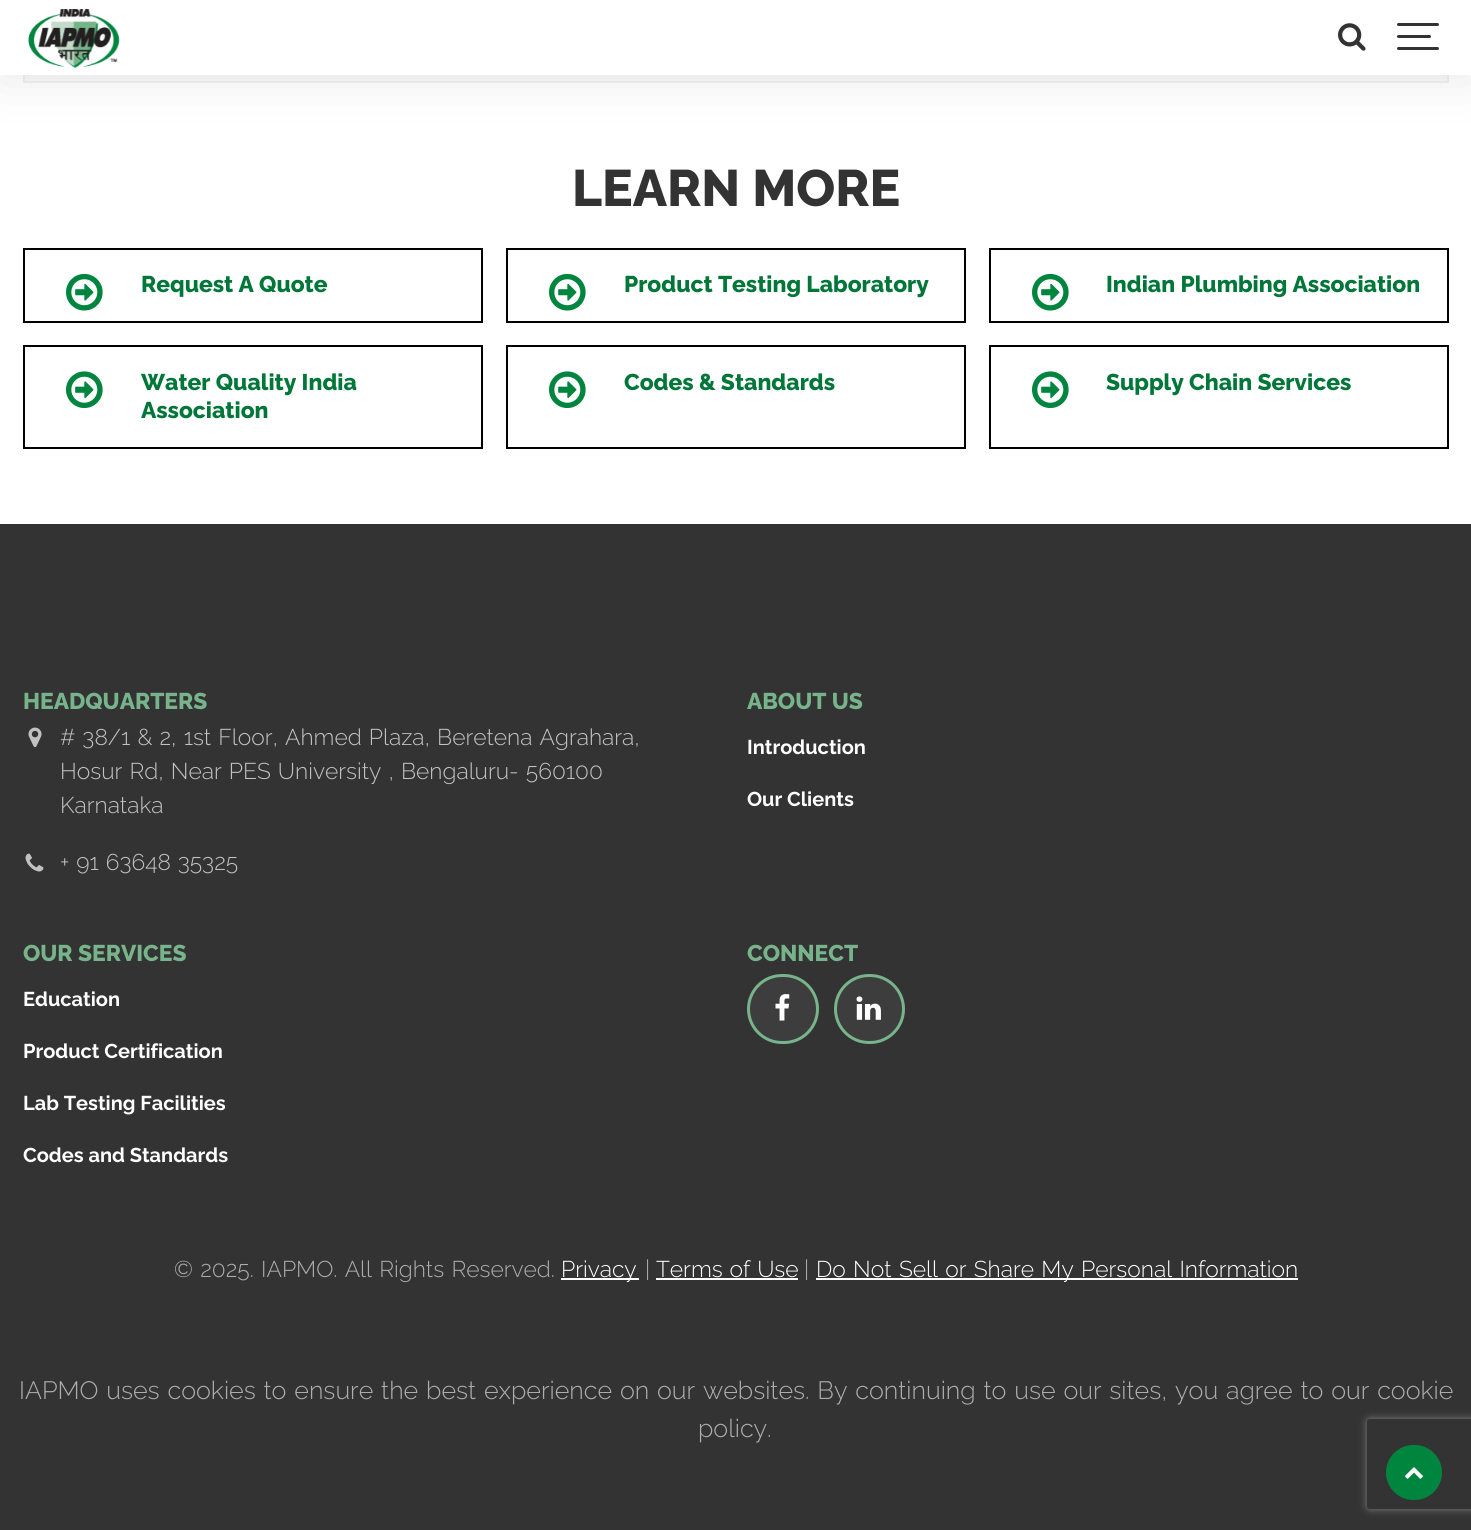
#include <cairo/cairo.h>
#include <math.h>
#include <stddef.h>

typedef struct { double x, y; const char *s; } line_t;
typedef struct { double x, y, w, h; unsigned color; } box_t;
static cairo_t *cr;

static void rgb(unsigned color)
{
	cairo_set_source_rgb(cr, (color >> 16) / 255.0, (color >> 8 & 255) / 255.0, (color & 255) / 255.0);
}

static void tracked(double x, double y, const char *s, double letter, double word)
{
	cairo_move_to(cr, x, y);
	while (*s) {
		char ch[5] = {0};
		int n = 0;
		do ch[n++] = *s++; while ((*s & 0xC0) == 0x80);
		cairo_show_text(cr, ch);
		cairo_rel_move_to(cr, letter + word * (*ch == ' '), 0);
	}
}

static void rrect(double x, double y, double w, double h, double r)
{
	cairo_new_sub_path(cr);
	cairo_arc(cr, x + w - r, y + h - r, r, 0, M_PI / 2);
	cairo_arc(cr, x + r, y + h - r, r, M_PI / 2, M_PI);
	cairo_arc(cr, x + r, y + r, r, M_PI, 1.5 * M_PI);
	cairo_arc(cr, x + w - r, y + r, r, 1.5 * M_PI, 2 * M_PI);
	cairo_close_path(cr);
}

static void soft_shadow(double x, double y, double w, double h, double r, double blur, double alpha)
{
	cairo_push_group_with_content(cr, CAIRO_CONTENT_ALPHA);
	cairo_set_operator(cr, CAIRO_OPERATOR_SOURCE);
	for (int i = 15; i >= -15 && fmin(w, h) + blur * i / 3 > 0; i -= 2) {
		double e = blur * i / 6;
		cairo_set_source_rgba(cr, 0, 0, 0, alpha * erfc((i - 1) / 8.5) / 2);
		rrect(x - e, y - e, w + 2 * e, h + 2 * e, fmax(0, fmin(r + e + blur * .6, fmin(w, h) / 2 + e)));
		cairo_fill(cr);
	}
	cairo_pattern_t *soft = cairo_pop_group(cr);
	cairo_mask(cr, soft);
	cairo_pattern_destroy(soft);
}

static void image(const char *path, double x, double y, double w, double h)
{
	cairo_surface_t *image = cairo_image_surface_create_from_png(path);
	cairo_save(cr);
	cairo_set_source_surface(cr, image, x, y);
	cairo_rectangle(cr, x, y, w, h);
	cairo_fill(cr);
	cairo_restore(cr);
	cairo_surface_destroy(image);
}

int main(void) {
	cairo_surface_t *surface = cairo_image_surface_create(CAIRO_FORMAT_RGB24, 1471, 1530);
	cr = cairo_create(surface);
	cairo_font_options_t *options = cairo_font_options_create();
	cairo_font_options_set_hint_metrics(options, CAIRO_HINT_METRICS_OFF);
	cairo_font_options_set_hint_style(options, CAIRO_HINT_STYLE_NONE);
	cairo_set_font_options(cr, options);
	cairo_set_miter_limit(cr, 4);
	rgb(0xffffff);
	cairo_paint(cr);
	rgb(0xf9f9f9);
	cairo_rectangle(cr, 25, 75, 1422, 6);
	cairo_fill(cr);
	cairo_rectangle(cr, 24, -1, 1424, 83);
	rgb(0xefefef);
	cairo_stroke(cr);
	rgb(0x000000);
	soft_shadow(0, 0, 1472, 75, 0, 26, 0.1);
	rgb(0xffffff);
	cairo_rectangle(cr, 0, 0, 1471, 75);
	cairo_fill(cr);
	image("img/1.png", 28, 9, 92, 59);
	image("img/2.png", 1338, 23, 28, 28);
	rgb(0x333333);
	rrect(1397, 35, 34, 3, 1.5);
	cairo_fill(cr);
	rrect(1397, 23, 42, 3, 1.5);
	cairo_fill(cr);
	rrect(1397, 47, 42, 3, 1.5);
	cairo_fill(cr);
	cairo_rectangle(cr, 24, 249, 458, 73);
	rgb(0x000000);
	cairo_stroke(cr);
	image("img/3.png", 66, 273, 37, 38);
	cairo_rectangle(cr, 507, 249, 458, 73);
	cairo_stroke(cr);
	image("img/3.png", 549, 273, 37, 38);
	cairo_rectangle(cr, 990, 249, 458, 73);
	cairo_stroke(cr);
	image("img/3.png", 1032, 273, 37, 38);
	cairo_rectangle(cr, 24, 346, 458, 102);
	cairo_stroke(cr);
	image("img/4.png", 66, 371, 37, 38);
	cairo_rectangle(cr, 507, 346, 458, 102);
	cairo_stroke(cr);
	image("img/4.png", 549, 371, 37, 38);
	cairo_rectangle(cr, 990, 346, 458, 102);
	cairo_stroke(cr);
	image("img/4.png", 1032, 371, 37, 38);
	rgb(0x333333);
	cairo_rectangle(cr, 0, 524, 1471, 1006);
	cairo_fill(cr);
	image("img/5.png", 28, 727, 14, 21);
	image("img/6.png", 25, 853, 19, 19);
	rgb(0x3d3d3d);
	rrect(748.5, 975.5, 69, 67, 33.5);
	cairo_fill_preserve(cr);
	rgb(0x78b48b);
	cairo_set_line_width(cr, 3);
	cairo_stroke(cr);
	image("img/7.png", 775, 994, 15, 27);
	rgb(0x3d3d3d);
	rrect(835.5, 975.5, 68, 67, 33.5);
	cairo_fill_preserve(cr);
	rgb(0x78b48b);
	cairo_stroke(cr);
	image("img/8.png", 856, 996, 25, 24);
	{
		static const box_t items[] = {
			{561, 1278, 78, 2, 0xffffff},
			{656, 1278, 142, 2, 0xffffff},
			{816, 1278, 482, 2, 0xffffff},
		};
		for (size_t i = 0; i < sizeof items / sizeof *items; i++) {
			rgb(items[i].color);
			cairo_rectangle(cr, items[i].x, items[i].y, items[i].w, items[i].h);
			cairo_fill(cr);
		}
	}
	cairo_save(cr);
	cairo_set_fill_rule(cr, CAIRO_FILL_RULE_EVEN_ODD);
	cairo_new_path(cr);
	cairo_move_to(cr, 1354, 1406);
	cairo_line_to(cr, 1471, 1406);
	cairo_line_to(cr, 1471, 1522);
	cairo_line_to(cr, 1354, 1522);
	cairo_close_path(cr);
	cairo_move_to(cr, 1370, 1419);
	cairo_line_to(cr, 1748, 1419);
	cairo_curve_to(cr, 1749.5, 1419, 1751, 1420.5, 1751, 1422);
	cairo_line_to(cr, 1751, 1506);
	cairo_curve_to(cr, 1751, 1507.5, 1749.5, 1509, 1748, 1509);
	cairo_line_to(cr, 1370, 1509);
	cairo_curve_to(cr, 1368.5, 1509, 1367, 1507.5, 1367, 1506);
	cairo_line_to(cr, 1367, 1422);
	cairo_curve_to(cr, 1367, 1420.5, 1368.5, 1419, 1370, 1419);
	cairo_close_path(cr);
	cairo_clip(cr);
	rgb(0x808080);
	soft_shadow(1367, 1419, 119, 90, 3, 4, 1);
	cairo_restore(cr);
	rgb(0x00853f);
	rrect(1386, 1445, 56, 55, 27.5);
	cairo_fill(cr);
	image("img/9.png", 1405, 1467, 18, 12);
	cairo_select_font_face(cr, "Raleway ExtraBold", CAIRO_FONT_SLANT_NORMAL, CAIRO_FONT_WEIGHT_NORMAL);
	cairo_set_font_size(cr, 51.25);
	rgb(0x333333);
	cairo_move_to(cr, 572, 206);
	cairo_show_text(cr, "LEARN MORE");
	cairo_set_font_size(cr, 22.8);
	rgb(0x007738);
	{
		static const line_t items[] = {
			{141, 292, "Request A Quote"},
			{624, 292, "Product Testing Laboratory"},
			{1106, 292, "Indian Plumbing Association"},
			{141, 390, "Water Quality India"},
			{141, 418, "Association"},
			{624, 390, "Codes & Standards"},
			{1106, 390, "Supply Chain Services"},
		};
		for (size_t i = 0; i < sizeof items / sizeof *items; i++) {
			cairo_move_to(cr, items[i].x, items[i].y);
			cairo_show_text(cr, items[i].s);
		}
	}
	rgb(0x78b48b);
	cairo_move_to(cr, 23, 709);
	cairo_show_text(cr, "HEADQUARTERS");
	cairo_select_font_face(cr, "Raleway Light", CAIRO_FONT_SLANT_NORMAL, CAIRO_FONT_WEIGHT_NORMAL);
	rgb(0xc2c2c2);
	tracked(60, 745, "# 38/1 & 2, 1st Floor, Ahmed Plaza, Beretena Agrahara,", 0, 1.25);
	tracked(60, 779, "Hosur Rd, Near PES University , Bengaluru- 560100", 0, 1.25);
	cairo_move_to(cr, 60, 813);
	cairo_show_text(cr, "Karnataka");
	tracked(60, 870, "+ 91 63648 35325", 0, 1);
	cairo_select_font_face(cr, "Raleway ExtraBold", CAIRO_FONT_SLANT_NORMAL, CAIRO_FONT_WEIGHT_NORMAL);
	rgb(0x78b48b);
	cairo_move_to(cr, 747, 709);
	cairo_show_text(cr, "ABOUT US");
	cairo_select_font_face(cr, "Raleway", CAIRO_FONT_SLANT_NORMAL, CAIRO_FONT_WEIGHT_BOLD);
	cairo_set_font_size(cr, 20);
	rgb(0xffffff);
	cairo_move_to(cr, 747, 754);
	cairo_show_text(cr, "Introduction");
	cairo_move_to(cr, 747, 806);
	cairo_show_text(cr, "Our Clients");
	cairo_select_font_face(cr, "Raleway ExtraBold", CAIRO_FONT_SLANT_NORMAL, CAIRO_FONT_WEIGHT_NORMAL);
	cairo_set_font_size(cr, 22.8);
	rgb(0x78b48b);
	cairo_move_to(cr, 23, 961);
	cairo_show_text(cr, "OUR SERVICES");
	cairo_select_font_face(cr, "Raleway", CAIRO_FONT_SLANT_NORMAL, CAIRO_FONT_WEIGHT_BOLD);
	cairo_set_font_size(cr, 20);
	rgb(0xffffff);
	{
		static const line_t items[] = {
			{23, 1006, "Education"},
			{23, 1058, "Product Certification"},
			{23, 1110, "Lab Testing Facilities"},
			{23, 1162, "Codes and Standards"},
		};
		for (size_t i = 0; i < sizeof items / sizeof *items; i++) {
			cairo_move_to(cr, items[i].x, items[i].y);
			cairo_show_text(cr, items[i].s);
		}
	}
	cairo_select_font_face(cr, "Raleway ExtraBold", CAIRO_FONT_SLANT_NORMAL, CAIRO_FONT_WEIGHT_NORMAL);
	cairo_set_font_size(cr, 22.8);
	rgb(0x78b48b);
	cairo_move_to(cr, 747, 961);
	cairo_show_text(cr, "CONNECT");
	cairo_select_font_face(cr, "Raleway Light", CAIRO_FONT_SLANT_NORMAL, CAIRO_FONT_WEIGHT_NORMAL);
	rgb(0xadadad);
	tracked(174, 1277, "© 2025. IAPMO. All Rights Reserved.", 0, 1.5);
	rgb(0xffffff);
	cairo_move_to(cr, 561, 1277);
	cairo_show_text(cr, "Privacy");
	rgb(0xadadad);
	cairo_move_to(cr, 645, 1277);
	cairo_show_text(cr, "|");
	rgb(0xffffff);
	tracked(656, 1277, "Terms of Use", 0, 1);
	rgb(0xadadad);
	cairo_move_to(cr, 804, 1277);
	cairo_show_text(cr, "|");
	rgb(0xffffff);
	tracked(816, 1277, "Do Not Sell or Share My Personal Information", 0, 1.5);
	cairo_set_font_size(cr, 25.08);
	rgb(0xadadad);
	tracked(19, 1399, "IAPMO uses cookies to ensure the best experience on our websites. By continuing to use our sites, you agree to our cookie", 0, 1.4);
	cairo_move_to(cr, 698, 1437);
	cairo_show_text(cr, "policy.");
	cairo_surface_write_to_png(surface, "page.png");
	cairo_font_options_destroy(options);
	cairo_destroy(cr);
	cairo_surface_destroy(surface);
	return 0;
}
